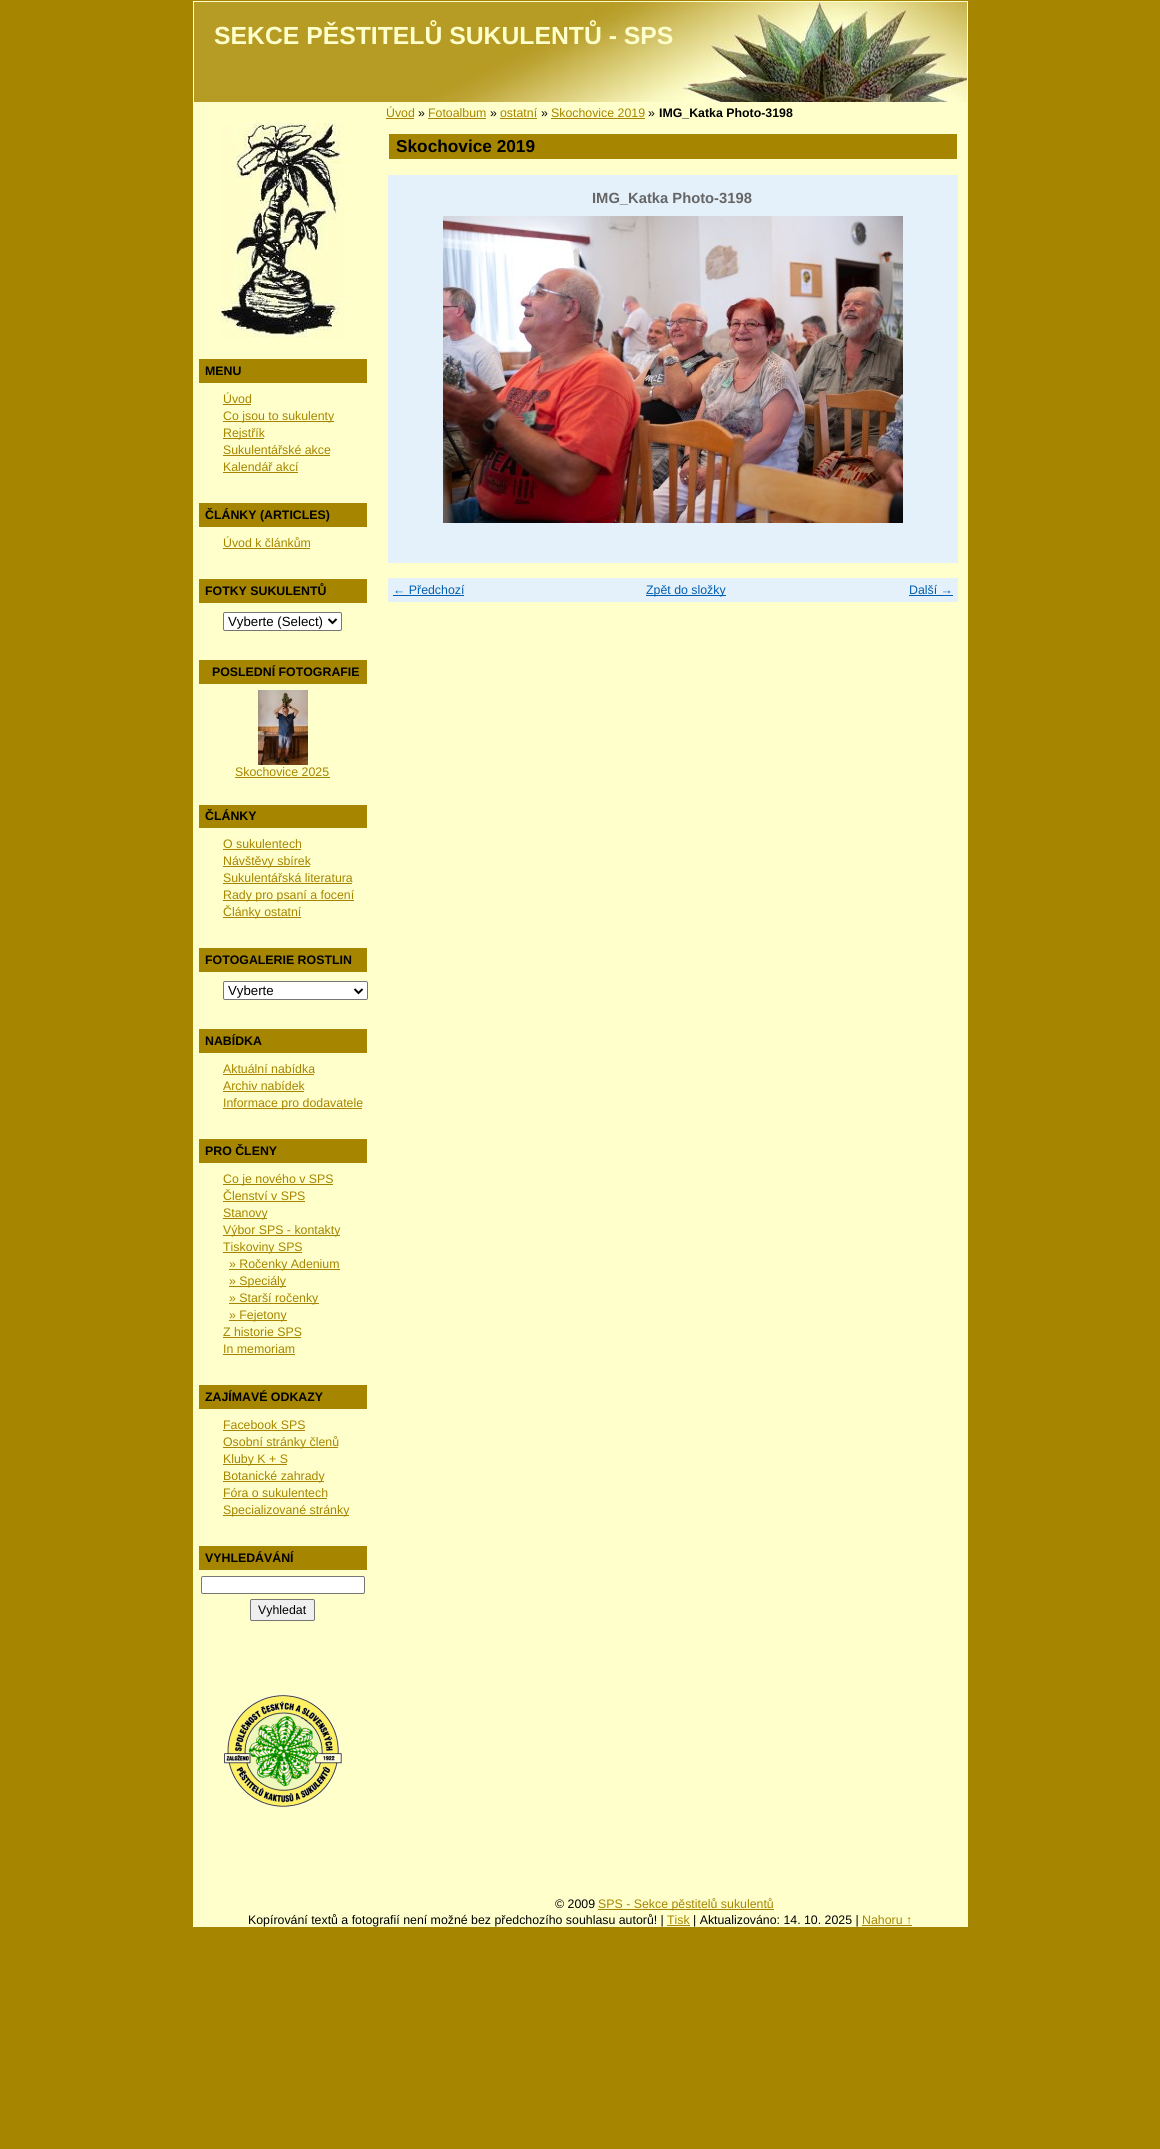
#include <cairo/cairo.h>
#include <math.h>
#include <stddef.h>

typedef struct { double x, y; const char *s; } line_t;
typedef struct { double x, y, w, h; unsigned color; } box_t;
static cairo_t *cr;

static void rgb(unsigned color)
{
	cairo_set_source_rgb(cr, (color >> 16) / 255.0, (color >> 8 & 255) / 255.0, (color & 255) / 255.0);
}

static void rrect(double x, double y, double w, double h, double r)
{
	cairo_new_sub_path(cr);
	cairo_arc(cr, x + w - r, y + h - r, r, 0, M_PI / 2);
	cairo_arc(cr, x + r, y + h - r, r, M_PI / 2, M_PI);
	cairo_arc(cr, x + r, y + r, r, M_PI, 1.5 * M_PI);
	cairo_arc(cr, x + w - r, y + r, r, 1.5 * M_PI, 2 * M_PI);
	cairo_close_path(cr);
}

static void image(const char *path, double x, double y, double w, double h)
{
	cairo_surface_t *image = cairo_image_surface_create_from_png(path);
	cairo_save(cr);
	cairo_set_source_surface(cr, image, x, y);
	cairo_rectangle(cr, x, y, w, h);
	cairo_fill(cr);
	cairo_restore(cr);
	cairo_surface_destroy(image);
}

int main(void) {
	cairo_surface_t *surface = cairo_image_surface_create(CAIRO_FORMAT_RGB24, 1160, 2149);
	cr = cairo_create(surface);
	cairo_font_options_t *options = cairo_font_options_create();
	cairo_font_options_set_hint_metrics(options, CAIRO_HINT_METRICS_OFF);
	cairo_font_options_set_hint_style(options, CAIRO_HINT_STYLE_NONE);
	cairo_set_font_options(cr, options);
	cairo_set_miter_limit(cr, 4);
	rgb(0xa68600);
	cairo_paint(cr);
	rgb(0xffffcc);
	cairo_rectangle(cr, 193, 103, 775, 1824);
	cairo_fill(cr);
	image("img/1.png", 194, 2, 773, 100);
	cairo_rectangle(cr, 193.5, 1.5, 774, 101);
	cairo_set_line_width(cr, 1);
	cairo_stroke(cr);
	image("img/2.png", 220, 123, 125, 215);
	{
		static const box_t items[] = {
			{199, 359, 168, 24, 0xa68600},
			{223, 404, 28, 1, 0xa68600},
			{223, 421, 111, 1, 0xa68600},
			{223, 438, 41, 1, 0xa68600},
			{223, 455, 107, 1, 0xa68600},
			{223, 472, 75, 1, 0xa68600},
			{199, 503, 168, 24, 0xa68600},
			{223, 548, 87, 1, 0xa68600},
			{199, 579, 168, 24, 0xa68600},
		};
		for (size_t i = 0; i < sizeof items / sizeof *items; i++) {
			rgb(items[i].color);
			cairo_rectangle(cr, items[i].x, items[i].y, items[i].w, items[i].h);
			cairo_fill(cr);
		}
	}
	rgb(0xffffff);
	rrect(223.5, 612.5, 118, 18, 1.5);
	cairo_fill_preserve(cr);
	rgb(0x767676);
	cairo_stroke(cr);
	cairo_new_path(cr);
	cairo_move_to(cr, 328.5, 619);
	cairo_line_to(cr, 332.5, 623);
	cairo_line_to(cr, 336.5, 619);
	rgb(0x000000);
	cairo_set_line_width(cr, 2);
	cairo_stroke(cr);
	rgb(0xa68600);
	cairo_rectangle(cr, 199, 660, 168, 24);
	cairo_fill(cr);
	image("img/3.png", 258, 690, 50, 75);
	{
		static const box_t items[] = {
			{235, 777, 95, 1, 0xa68600},
			{199, 805, 168, 23, 0xa68600},
			{223, 849, 78, 1, 0xa68600},
			{223, 866, 87, 1, 0xa68600},
			{223, 883, 129, 1, 0xa68600},
			{223, 900, 131, 1, 0xa68600},
			{223, 917, 78, 1, 0xa68600},
			{199, 948, 168, 24, 0xa68600},
		};
		for (size_t i = 0; i < sizeof items / sizeof *items; i++) {
			rgb(items[i].color);
			cairo_rectangle(cr, items[i].x, items[i].y, items[i].w, items[i].h);
			cairo_fill(cr);
		}
	}
	rgb(0xffffff);
	rrect(223.5, 981.5, 144, 18, 1.5);
	cairo_fill_preserve(cr);
	rgb(0x767676);
	cairo_set_line_width(cr, 1);
	cairo_stroke(cr);
	cairo_new_path(cr);
	cairo_move_to(cr, 354.5, 989);
	cairo_line_to(cr, 358.5, 993);
	cairo_line_to(cr, 362.5, 989);
	rgb(0x000000);
	cairo_set_line_width(cr, 2);
	cairo_stroke(cr);
	{
		static const box_t items[] = {
			{199, 1029, 168, 24, 0xa68600},
			{223, 1074, 91, 1, 0xa68600},
			{223, 1091, 81, 1, 0xa68600},
			{223, 1108, 139, 1, 0xa68600},
			{199, 1139, 168, 24, 0xa68600},
			{223, 1184, 110, 1, 0xa68600},
			{223, 1201, 82, 1, 0xa68600},
			{223, 1218, 44, 1, 0xa68600},
			{223, 1235, 117, 1, 0xa68600},
			{223, 1252, 79, 1, 0xa68600},
			{229, 1269, 111, 1, 0xa68600},
			{229, 1286, 57, 1, 0xa68600},
			{229, 1303, 90, 1, 0xa68600},
			{229, 1320, 58, 1, 0xa68600},
			{223, 1337, 78, 1, 0xa68600},
			{223, 1354, 72, 1, 0xa68600},
			{199, 1385, 168, 24, 0xa68600},
			{223, 1430, 82, 1, 0xa68600},
			{223, 1447, 115, 1, 0xa68600},
			{223, 1464, 64, 1, 0xa68600},
			{223, 1481, 101, 1, 0xa68600},
			{223, 1498, 104, 1, 0xa68600},
			{223, 1515, 126, 1, 0xa68600},
			{199, 1546, 168, 24, 0xa68600},
		};
		for (size_t i = 0; i < sizeof items / sizeof *items; i++) {
			rgb(items[i].color);
			cairo_rectangle(cr, items[i].x, items[i].y, items[i].w, items[i].h);
			cairo_fill(cr);
		}
	}
	rgb(0xffffff);
	rrect(201.5, 1576.5, 163, 17, 1.5);
	cairo_fill_preserve(cr);
	rgb(0x767676);
	cairo_set_line_width(cr, 1);
	cairo_stroke(cr);
	rgb(0xefefef);
	rrect(250.5, 1599.5, 64, 21, 1.5);
	cairo_fill_preserve(cr);
	rgb(0x767676);
	cairo_stroke(cr);
	image("img/4.png", 223, 1695, 119, 112);
	{
		static const box_t items[] = {
			{386, 118, 28, 1, 0xa68600},
			{428, 118, 58, 1, 0xa68600},
			{500, 118, 37, 1, 0xa68600},
			{551, 118, 94, 1, 0xa68600},
			{389, 134, 568, 25, 0xa68600},
			{388, 175, 570, 388, 0xe4f0fa},
		};
		for (size_t i = 0; i < sizeof items / sizeof *items; i++) {
			rgb(items[i].color);
			cairo_rectangle(cr, items[i].x, items[i].y, items[i].w, items[i].h);
			cairo_fill(cr);
		}
	}
	image("img/5.png", 443, 216, 460, 307);
	{
		static const box_t items[] = {
			{388, 578, 570, 24, 0xe4f0fa},
			{393, 595, 71, 1, 0x005eb1},
			{646, 595, 80, 1, 0x005eb1},
			{909, 595, 44, 1, 0x005eb1},
			{598, 1909, 176, 1, 0xa68600},
			{667, 1925, 23, 1, 0xa68600},
			{862, 1925, 50, 1, 0xa68600},
		};
		for (size_t i = 0; i < sizeof items / sizeof *items; i++) {
			rgb(items[i].color);
			cairo_rectangle(cr, items[i].x, items[i].y, items[i].w, items[i].h);
			cairo_fill(cr);
		}
	}
	cairo_select_font_face(cr, "Liberation Sans", CAIRO_FONT_SLANT_NORMAL, CAIRO_FONT_WEIGHT_BOLD);
	cairo_set_font_size(cr, 24.75);
	rgb(0xffffcc);
	cairo_move_to(cr, 214, 44);
	cairo_show_text(cr, "SEKCE PĚSTITELŮ SUKULENTŮ - SPS");
	cairo_set_font_size(cr, 12.35);
	rgb(0x000000);
	cairo_move_to(cr, 205, 375);
	cairo_show_text(cr, "MENU");
	cairo_select_font_face(cr, "Liberation Sans", CAIRO_FONT_SLANT_NORMAL, CAIRO_FONT_WEIGHT_NORMAL);
	rgb(0xa68600);
	{
		static const line_t items[] = {
			{223, 403, "Úvod"},
			{223, 420, "Co jsou to sukulenty"},
			{223, 437, "Rejstřík"},
			{223, 454, "Sukulentářské akce"},
			{223, 471, "Kalendář akcí"},
		};
		for (size_t i = 0; i < sizeof items / sizeof *items; i++) {
			cairo_move_to(cr, items[i].x, items[i].y);
			cairo_show_text(cr, items[i].s);
		}
	}
	cairo_select_font_face(cr, "Liberation Sans", CAIRO_FONT_SLANT_NORMAL, CAIRO_FONT_WEIGHT_BOLD);
	rgb(0x000000);
	cairo_move_to(cr, 205, 519);
	cairo_show_text(cr, "ČLÁNKY (ARTICLES)");
	cairo_select_font_face(cr, "Liberation Sans", CAIRO_FONT_SLANT_NORMAL, CAIRO_FONT_WEIGHT_NORMAL);
	rgb(0xa68600);
	cairo_move_to(cr, 223, 547);
	cairo_show_text(cr, "Úvod k článkům");
	cairo_select_font_face(cr, "Liberation Sans", CAIRO_FONT_SLANT_NORMAL, CAIRO_FONT_WEIGHT_BOLD);
	rgb(0x000000);
	cairo_move_to(cr, 205, 595);
	cairo_show_text(cr, "FOTKY SUKULENTŮ");
	cairo_select_font_face(cr, "Liberation Sans", CAIRO_FONT_SLANT_NORMAL, CAIRO_FONT_WEIGHT_NORMAL);
	cairo_set_font_size(cr, 13.25);
	cairo_move_to(cr, 228, 626);
	cairo_show_text(cr, "Vyberte (Select)");
	cairo_select_font_face(cr, "Liberation Sans", CAIRO_FONT_SLANT_NORMAL, CAIRO_FONT_WEIGHT_BOLD);
	cairo_set_font_size(cr, 12.35);
	cairo_move_to(cr, 212, 676);
	cairo_show_text(cr, "POSLEDNÍ FOTOGRAFIE");
	cairo_select_font_face(cr, "Liberation Sans", CAIRO_FONT_SLANT_NORMAL, CAIRO_FONT_WEIGHT_NORMAL);
	rgb(0xa68600);
	cairo_move_to(cr, 235, 776);
	cairo_show_text(cr, "Skochovice 2025");
	cairo_select_font_face(cr, "Liberation Sans", CAIRO_FONT_SLANT_NORMAL, CAIRO_FONT_WEIGHT_BOLD);
	rgb(0x000000);
	cairo_move_to(cr, 205, 820);
	cairo_show_text(cr, "ČLÁNKY");
	cairo_select_font_face(cr, "Liberation Sans", CAIRO_FONT_SLANT_NORMAL, CAIRO_FONT_WEIGHT_NORMAL);
	rgb(0xa68600);
	{
		static const line_t items[] = {
			{223, 848, "O sukulentech"},
			{223, 865, "Návštěvy sbírek"},
			{223, 882, "Sukulentářská literatura"},
			{223, 899, "Rady pro psaní a focení"},
			{223, 916, "Články ostatní"},
		};
		for (size_t i = 0; i < sizeof items / sizeof *items; i++) {
			cairo_move_to(cr, items[i].x, items[i].y);
			cairo_show_text(cr, items[i].s);
		}
	}
	cairo_select_font_face(cr, "Liberation Sans", CAIRO_FONT_SLANT_NORMAL, CAIRO_FONT_WEIGHT_BOLD);
	rgb(0x000000);
	cairo_move_to(cr, 205, 964);
	cairo_show_text(cr, "FOTOGALERIE ROSTLIN");
	cairo_select_font_face(cr, "Liberation Sans", CAIRO_FONT_SLANT_NORMAL, CAIRO_FONT_WEIGHT_NORMAL);
	cairo_set_font_size(cr, 13.25);
	cairo_move_to(cr, 228, 995);
	cairo_show_text(cr, "Vyberte");
	cairo_select_font_face(cr, "Liberation Sans", CAIRO_FONT_SLANT_NORMAL, CAIRO_FONT_WEIGHT_BOLD);
	cairo_set_font_size(cr, 12.35);
	cairo_move_to(cr, 205, 1045);
	cairo_show_text(cr, "NABÍDKA");
	cairo_select_font_face(cr, "Liberation Sans", CAIRO_FONT_SLANT_NORMAL, CAIRO_FONT_WEIGHT_NORMAL);
	rgb(0xa68600);
	{
		static const line_t items[] = {
			{223, 1073, "Aktuální nabídka"},
			{223, 1090, "Archiv nabídek"},
			{223, 1107, "Informace pro dodavatele"},
		};
		for (size_t i = 0; i < sizeof items / sizeof *items; i++) {
			cairo_move_to(cr, items[i].x, items[i].y);
			cairo_show_text(cr, items[i].s);
		}
	}
	cairo_select_font_face(cr, "Liberation Sans", CAIRO_FONT_SLANT_NORMAL, CAIRO_FONT_WEIGHT_BOLD);
	rgb(0x000000);
	cairo_move_to(cr, 205, 1155);
	cairo_show_text(cr, "PRO ČLENY");
	cairo_select_font_face(cr, "Liberation Sans", CAIRO_FONT_SLANT_NORMAL, CAIRO_FONT_WEIGHT_NORMAL);
	rgb(0xa68600);
	{
		static const line_t items[] = {
			{223, 1183, "Co je nového v SPS"},
			{223, 1200, "Členství v SPS"},
			{223, 1217, "Stanovy"},
			{223, 1234, "Výbor SPS - kontakty"},
			{223, 1251, "Tiskoviny SPS"},
			{229, 1268, "» Ročenky Adenium"},
			{229, 1285, "» Speciály"},
			{229, 1302, "» Starší ročenky"},
			{229, 1319, "» Fejetony"},
			{223, 1336, "Z historie SPS"},
			{223, 1353, "In memoriam"},
		};
		for (size_t i = 0; i < sizeof items / sizeof *items; i++) {
			cairo_move_to(cr, items[i].x, items[i].y);
			cairo_show_text(cr, items[i].s);
		}
	}
	cairo_select_font_face(cr, "Liberation Sans", CAIRO_FONT_SLANT_NORMAL, CAIRO_FONT_WEIGHT_BOLD);
	rgb(0x000000);
	cairo_move_to(cr, 205, 1401);
	cairo_show_text(cr, "ZAJÍMAVÉ ODKAZY");
	cairo_select_font_face(cr, "Liberation Sans", CAIRO_FONT_SLANT_NORMAL, CAIRO_FONT_WEIGHT_NORMAL);
	rgb(0xa68600);
	{
		static const line_t items[] = {
			{223, 1429, "Facebook SPS"},
			{223, 1446, "Osobní stránky členů"},
			{223, 1463, "Kluby K + S"},
			{223, 1480, "Botanické zahrady"},
			{223, 1497, "Fóra o sukulentech"},
			{223, 1514, "Specializované stránky"},
		};
		for (size_t i = 0; i < sizeof items / sizeof *items; i++) {
			cairo_move_to(cr, items[i].x, items[i].y);
			cairo_show_text(cr, items[i].s);
		}
	}
	cairo_select_font_face(cr, "Liberation Sans", CAIRO_FONT_SLANT_NORMAL, CAIRO_FONT_WEIGHT_BOLD);
	rgb(0x000000);
	cairo_move_to(cr, 205, 1562);
	cairo_show_text(cr, "VYHLEDÁVÁNÍ");
	cairo_select_font_face(cr, "Liberation Sans", CAIRO_FONT_SLANT_NORMAL, CAIRO_FONT_WEIGHT_NORMAL);
	cairo_move_to(cr, 258, 1614);
	cairo_show_text(cr, "Vyhledat");
	rgb(0xa68600);
	cairo_move_to(cr, 386, 117);
	cairo_show_text(cr, "Úvod");
	rgb(0x000000);
	cairo_move_to(cr, 418, 117);
	cairo_show_text(cr, "»");
	rgb(0xa68600);
	cairo_move_to(cr, 428, 117);
	cairo_show_text(cr, "Fotoalbum");
	rgb(0x000000);
	cairo_move_to(cr, 490, 117);
	cairo_show_text(cr, "»");
	rgb(0xa68600);
	cairo_move_to(cr, 500, 117);
	cairo_show_text(cr, "ostatní");
	rgb(0x000000);
	cairo_move_to(cr, 541, 117);
	cairo_show_text(cr, "»");
	rgb(0xa68600);
	cairo_move_to(cr, 551, 117);
	cairo_show_text(cr, "Skochovice 2019");
	rgb(0x000000);
	cairo_move_to(cr, 648, 117);
	cairo_show_text(cr, "»");
	cairo_select_font_face(cr, "Liberation Sans", CAIRO_FONT_SLANT_NORMAL, CAIRO_FONT_WEIGHT_BOLD);
	cairo_move_to(cr, 659, 117);
	cairo_show_text(cr, "IMG_Katka Photo-3198");
	cairo_set_font_size(cr, 17.25);
	cairo_move_to(cr, 396, 152);
	cairo_show_text(cr, "Skochovice 2019");
	cairo_set_font_size(cr, 14.75);
	rgb(0x666666);
	cairo_move_to(cr, 592, 203);
	cairo_show_text(cr, "IMG_Katka Photo-3198");
	cairo_select_font_face(cr, "Liberation Sans", CAIRO_FONT_SLANT_NORMAL, CAIRO_FONT_WEIGHT_NORMAL);
	cairo_set_font_size(cr, 12.35);
	rgb(0x005eb1);
	{
		static const line_t items[] = {
			{393, 594, "← Předchozí"},
			{646, 594, "Zpět do složky"},
			{909, 594, "Další →"},
		};
		for (size_t i = 0; i < sizeof items / sizeof *items; i++) {
			cairo_move_to(cr, items[i].x, items[i].y);
			cairo_show_text(cr, items[i].s);
		}
	}
	rgb(0x000000);
	cairo_move_to(cr, 555, 1908);
	cairo_show_text(cr, "© 2009");
	rgb(0xa68600);
	cairo_move_to(cr, 598, 1908);
	cairo_show_text(cr, "SPS - Sekce pěstitelů sukulentů");
	rgb(0x000000);
	cairo_move_to(cr, 248, 1924);
	cairo_show_text(cr, "Kopírování textů a fotografií není možné bez předchozího souhlasu autorů! |");
	rgb(0xa68600);
	cairo_move_to(cr, 667, 1924);
	cairo_show_text(cr, "Tisk");
	rgb(0x000000);
	cairo_move_to(cr, 693, 1924);
	cairo_show_text(cr, "| Aktualizováno: 14. 10. 2025 |");
	rgb(0xa68600);
	cairo_move_to(cr, 862, 1924);
	cairo_show_text(cr, "Nahoru ↑");
	cairo_surface_write_to_png(surface, "page.png");
	cairo_font_options_destroy(options);
	cairo_destroy(cr);
	cairo_surface_destroy(surface);
	return 0;
}
